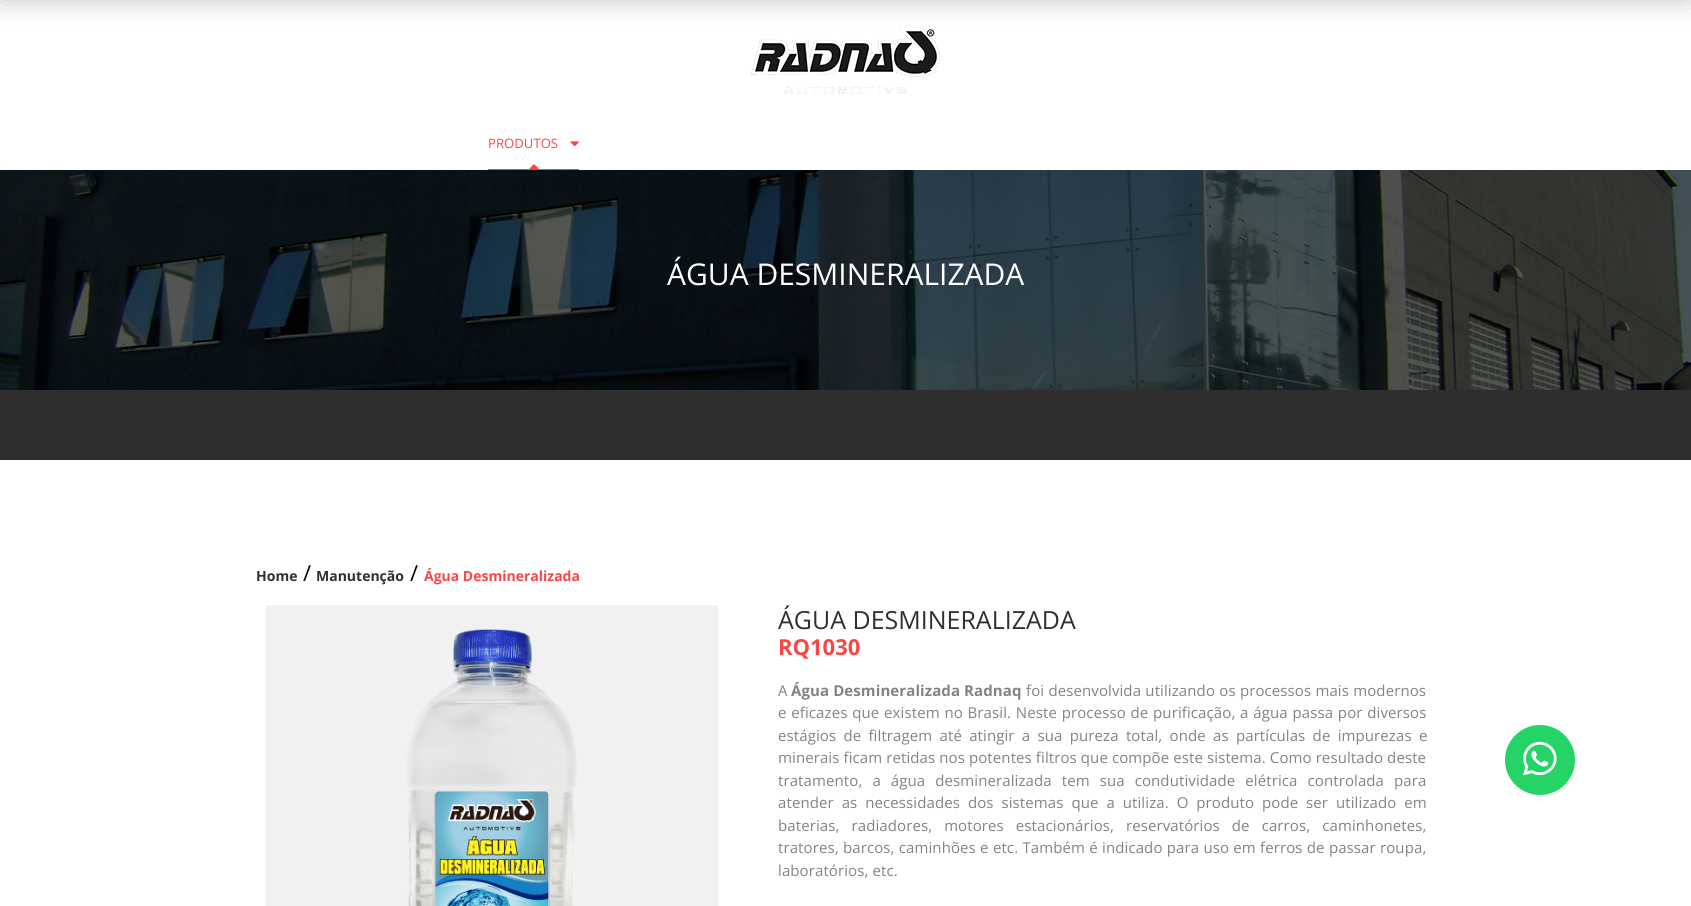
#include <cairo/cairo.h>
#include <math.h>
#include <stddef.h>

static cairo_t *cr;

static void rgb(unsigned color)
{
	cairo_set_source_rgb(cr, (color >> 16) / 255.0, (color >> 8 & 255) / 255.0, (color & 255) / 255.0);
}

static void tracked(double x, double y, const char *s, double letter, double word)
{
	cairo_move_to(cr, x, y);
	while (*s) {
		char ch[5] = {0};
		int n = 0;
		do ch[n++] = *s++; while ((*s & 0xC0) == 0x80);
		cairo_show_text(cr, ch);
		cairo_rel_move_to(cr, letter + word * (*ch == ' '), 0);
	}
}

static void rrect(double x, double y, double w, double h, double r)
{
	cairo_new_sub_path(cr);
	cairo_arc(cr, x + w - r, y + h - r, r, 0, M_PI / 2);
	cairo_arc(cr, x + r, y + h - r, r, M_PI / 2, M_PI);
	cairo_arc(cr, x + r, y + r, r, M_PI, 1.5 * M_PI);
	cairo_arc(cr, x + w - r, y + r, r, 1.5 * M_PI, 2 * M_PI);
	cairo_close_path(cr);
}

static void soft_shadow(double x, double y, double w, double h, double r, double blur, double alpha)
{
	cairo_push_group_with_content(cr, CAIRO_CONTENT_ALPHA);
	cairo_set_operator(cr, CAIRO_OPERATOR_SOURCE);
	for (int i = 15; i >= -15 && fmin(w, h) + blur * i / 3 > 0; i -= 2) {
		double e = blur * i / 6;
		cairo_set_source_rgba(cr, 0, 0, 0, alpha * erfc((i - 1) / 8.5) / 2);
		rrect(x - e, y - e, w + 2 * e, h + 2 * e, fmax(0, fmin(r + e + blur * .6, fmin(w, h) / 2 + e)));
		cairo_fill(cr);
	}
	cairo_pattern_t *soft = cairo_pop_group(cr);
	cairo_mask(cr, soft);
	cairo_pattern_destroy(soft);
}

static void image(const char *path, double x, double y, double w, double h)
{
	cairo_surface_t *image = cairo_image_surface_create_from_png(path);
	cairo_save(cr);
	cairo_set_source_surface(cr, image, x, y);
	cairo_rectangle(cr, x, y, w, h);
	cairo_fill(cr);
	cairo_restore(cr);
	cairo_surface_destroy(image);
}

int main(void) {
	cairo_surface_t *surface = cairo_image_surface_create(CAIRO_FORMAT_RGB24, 1691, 906);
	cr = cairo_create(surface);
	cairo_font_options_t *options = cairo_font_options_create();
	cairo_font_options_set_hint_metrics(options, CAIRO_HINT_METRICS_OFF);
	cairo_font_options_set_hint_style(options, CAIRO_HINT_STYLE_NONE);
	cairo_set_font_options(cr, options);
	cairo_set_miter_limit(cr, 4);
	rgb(0xffffff);
	cairo_paint(cr);
	image("img/1.png", 751, 28, 189, 66);
	rgb(0x000000);
	soft_shadow(0, -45, 1691, 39, 0, 15, 0.35);
	image("img/2.png", 570, 141, 9, 6);
	rgb(0xfc4646);
	cairo_new_path(cr);
	cairo_move_to(cr, 539, 169);
	cairo_line_to(cr, 529, 169);
	cairo_line_to(cr, 534, 164);
	cairo_close_path(cr);
	cairo_fill(cr);
	cairo_rectangle(cr, 488, 169, 91, 1);
	cairo_fill(cr);
	rgb(0x2e2e2e);
	cairo_rectangle(cr, 0, 390, 1691, 70);
	cairo_fill(cr);
	image("img/3.png", 0, 170, 1691, 220);
	rgb(0xf1f1f1);
	cairo_rectangle(cr, 266, 605, 452, 301);
	cairo_fill(cr);
	image("img/4.png", 406, 629, 171, 277);
	rgb(0x25d366);
	cairo_arc(cr, 1540, 760, 35, 0, 2 * M_PI);
	cairo_fill(cr);
	image("img/5.png", 1523, 741, 34, 35);
	cairo_select_font_face(cr, "Open Sans", CAIRO_FONT_SLANT_NORMAL, CAIRO_FONT_WEIGHT_NORMAL);
	cairo_set_font_size(cr, 13);
	rgb(0xfc4646);
	tracked(488, 148, "PRODUTOS", 0.1, 0);
	cairo_set_font_size(cr, 30);
	rgb(0xffffff);
	cairo_move_to(cr, 667, 285);
	cairo_show_text(cr, "ÁGUA DESMINERALIZADA");
	cairo_select_font_face(cr, "Open Sans", CAIRO_FONT_SLANT_NORMAL, CAIRO_FONT_WEIGHT_BOLD);
	cairo_set_font_size(cr, 14);
	rgb(0x303030);
	cairo_move_to(cr, 256, 581);
	cairo_show_text(cr, "Home");
	cairo_select_font_face(cr, "Open Sans", CAIRO_FONT_SLANT_NORMAL, CAIRO_FONT_WEIGHT_NORMAL);
	cairo_set_font_size(cr, 22);
	rgb(0x000000);
	cairo_move_to(cr, 303, 581);
	cairo_show_text(cr, "/");
	cairo_select_font_face(cr, "Open Sans", CAIRO_FONT_SLANT_NORMAL, CAIRO_FONT_WEIGHT_BOLD);
	cairo_set_font_size(cr, 14);
	rgb(0x303030);
	cairo_move_to(cr, 316, 581);
	cairo_show_text(cr, "Manutenção");
	cairo_select_font_face(cr, "Open Sans", CAIRO_FONT_SLANT_NORMAL, CAIRO_FONT_WEIGHT_NORMAL);
	cairo_set_font_size(cr, 22);
	rgb(0x000000);
	cairo_move_to(cr, 410, 581);
	cairo_show_text(cr, "/");
	cairo_select_font_face(cr, "Open Sans", CAIRO_FONT_SLANT_NORMAL, CAIRO_FONT_WEIGHT_BOLD);
	cairo_set_font_size(cr, 14);
	rgb(0xfc4646);
	cairo_move_to(cr, 424, 581);
	cairo_show_text(cr, "Água Desmineralizada");
	cairo_select_font_face(cr, "Open Sans", CAIRO_FONT_SLANT_NORMAL, CAIRO_FONT_WEIGHT_NORMAL);
	cairo_set_font_size(cr, 25);
	rgb(0x303030);
	cairo_move_to(cr, 778, 629);
	cairo_show_text(cr, "ÁGUA DESMINERALIZADA");
	cairo_select_font_face(cr, "Open Sans", CAIRO_FONT_SLANT_NORMAL, CAIRO_FONT_WEIGHT_BOLD);
	cairo_set_font_size(cr, 22);
	rgb(0xfc4646);
	cairo_move_to(cr, 778, 655);
	cairo_show_text(cr, "RQ1030");
	cairo_select_font_face(cr, "Open Sans", CAIRO_FONT_SLANT_NORMAL, CAIRO_FONT_WEIGHT_NORMAL);
	cairo_set_font_size(cr, 15);
	rgb(0x838383);
	tracked(778, 696, "A", 0.1, 0);
	cairo_select_font_face(cr, "Open Sans", CAIRO_FONT_SLANT_NORMAL, CAIRO_FONT_WEIGHT_BOLD);
	tracked(791, 696, "Água Desmineralizada Radnaq", 0.1, 0);
	cairo_select_font_face(cr, "Open Sans", CAIRO_FONT_SLANT_NORMAL, CAIRO_FONT_WEIGHT_NORMAL);
	tracked(1026, 696, "foi desenvolvida utilizando os processos mais modernos", 0.1, 0.25);
	tracked(778, 718, "e eficazes que existem no Brasil. Neste processo de purificação, a água passa por diversos", 0.1, 0.75);
	tracked(778, 741, "estágios de filtragem até atingir a sua pureza total, onde as partículas de impurezas e", 0.1, 3.25);
	tracked(778, 763, "minerais ficam retidas nos potentes filtros que compõe este sistema. Como resultado deste", 0.1, 0);
	tracked(778, 786, "tratamento, a água desmineralizada tem sua condutividade elétrica controlada para", 0.1, 6);
	tracked(778, 808, "atender as necessidades dos sistemas que a utiliza. O produto pode ser utilizado em", 0.1, 3.9);
	tracked(778, 831, "baterias, radiadores, motores estacionários, reservatórios de carros, caminhonetes,", 0.1, 8);
	tracked(778, 853, "tratores, barcos, caminhões e etc. Também é indicado para uso em ferros de passar roupa,", 0.1, 0.25);
	tracked(778, 876, "laboratórios, etc.", 0.1, 0);
	cairo_surface_write_to_png(surface, "page.png");
	cairo_font_options_destroy(options);
	cairo_destroy(cr);
	cairo_surface_destroy(surface);
	return 0;
}
